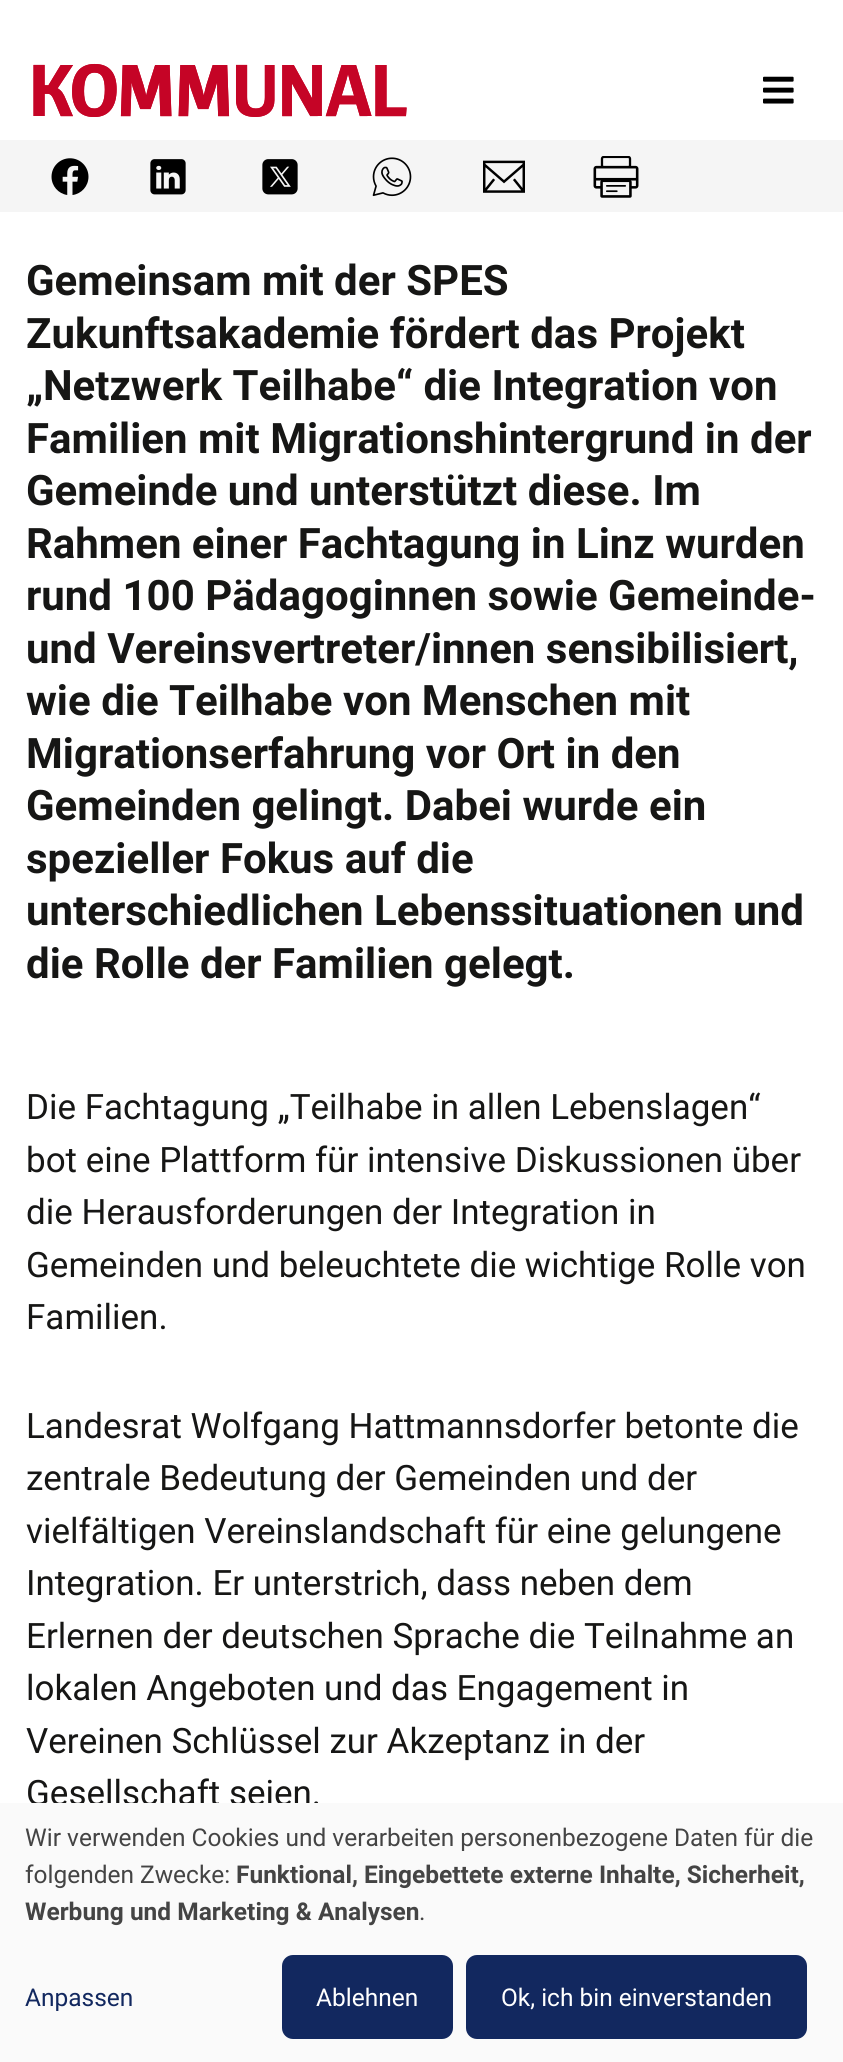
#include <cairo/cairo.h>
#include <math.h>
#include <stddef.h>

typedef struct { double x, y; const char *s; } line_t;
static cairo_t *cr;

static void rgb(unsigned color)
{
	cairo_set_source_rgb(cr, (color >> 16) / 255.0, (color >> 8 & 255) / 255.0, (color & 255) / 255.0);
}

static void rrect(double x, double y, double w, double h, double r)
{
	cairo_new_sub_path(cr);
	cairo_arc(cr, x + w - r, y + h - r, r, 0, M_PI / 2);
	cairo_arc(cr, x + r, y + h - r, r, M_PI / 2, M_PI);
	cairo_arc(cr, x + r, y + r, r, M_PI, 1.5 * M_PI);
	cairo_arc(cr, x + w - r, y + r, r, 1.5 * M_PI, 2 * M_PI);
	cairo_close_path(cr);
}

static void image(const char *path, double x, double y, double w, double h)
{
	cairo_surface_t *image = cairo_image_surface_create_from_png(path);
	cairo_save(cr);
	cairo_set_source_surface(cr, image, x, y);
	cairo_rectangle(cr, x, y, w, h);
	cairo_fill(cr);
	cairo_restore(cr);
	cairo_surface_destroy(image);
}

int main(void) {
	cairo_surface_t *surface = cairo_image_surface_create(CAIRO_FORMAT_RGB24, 843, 2062);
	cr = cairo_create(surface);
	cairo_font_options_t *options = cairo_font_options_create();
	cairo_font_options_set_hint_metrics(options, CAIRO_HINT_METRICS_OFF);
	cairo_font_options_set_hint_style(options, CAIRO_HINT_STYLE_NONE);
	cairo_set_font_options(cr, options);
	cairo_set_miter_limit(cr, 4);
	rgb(0xffffff);
	cairo_paint(cr);
	image("img/1.png", 33, 63, 374, 54);
	image("img/2.png", 763, 76, 31, 28);
	rgb(0xf5f5f5);
	cairo_rectangle(cr, 0, 140, 843, 72);
	cairo_fill(cr);
	image("img/3.png", 51, 158, 38, 37);
	image("img/4.png", 150, 159, 36, 36);
	image("img/5.png", 262, 159, 36, 36);
	image("img/6.png", 372, 157, 40, 40);
	image("img/7.png", 483, 160, 42, 33);
	image("img/8.png", 593, 156, 46, 42);
	cairo_select_font_face(cr, "Roboto", CAIRO_FONT_SLANT_NORMAL, CAIRO_FONT_WEIGHT_BOLD);
	cairo_set_font_size(cr, 42);
	rgb(0x161615);
	{
		static const line_t items[] = {
			{26, 295, "Gemeinsam mit der SPES"},
			{26, 348, "Zukunftsakademie fördert das Projekt"},
			{26, 400, "„Netzwerk Teilhabe“ die Integration von"},
			{26, 453, "Familien mit Migrationshintergrund in der"},
			{26, 505, "Gemeinde und unterstützt diese. Im"},
			{26, 558, "Rahmen einer Fachtagung in Linz wurden"},
			{26, 610, "rund 100 Pädagoginnen sowie Gemeinde-"},
			{26, 663, "und Vereinsvertreter/innen sensibilisiert,"},
			{26, 715, "wie die Teilhabe von Menschen mit"},
			{26, 768, "Migrationserfahrung vor Ort in den"},
			{26, 820, "Gemeinden gelingt. Dabei wurde ein"},
			{26, 873, "spezieller Fokus auf die"},
			{26, 925, "unterschiedlichen Lebenssituationen und"},
			{26, 978, "die Rolle der Familien gelegt."},
		};
		for (size_t i = 0; i < sizeof items / sizeof *items; i++) {
			cairo_move_to(cr, items[i].x, items[i].y);
			cairo_show_text(cr, items[i].s);
		}
	}
	cairo_select_font_face(cr, "Roboto", CAIRO_FONT_SLANT_NORMAL, CAIRO_FONT_WEIGHT_NORMAL);
	cairo_set_font_size(cr, 35);
	{
		static const line_t items[] = {
			{26, 1119, "Die Fachtagung „Teilhabe in allen Lebenslagen“"},
			{26, 1172, "bot eine Plattform für intensive Diskussionen über"},
			{26, 1224, "die Herausforderungen der Integration in"},
			{26, 1277, "Gemeinden und beleuchtete die wichtige Rolle von"},
			{26, 1329, "Familien."},
			{26, 1438, "Landesrat Wolfgang Hattmannsdorfer betonte die"},
			{26, 1490, "zentrale Bedeutung der Gemeinden und der"},
			{26, 1543, "vielfältigen Vereinslandschaft für eine gelungene"},
			{26, 1595, "Integration. Er unterstrich, dass neben dem"},
			{26, 1648, "Erlernen der deutschen Sprache die Teilnahme an"},
			{26, 1700, "lokalen Angeboten und das Engagement in"},
			{26, 1753, "Vereinen Schlüssel zur Akzeptanz in der"},
			{26, 1805, "Gesellschaft seien."},
		};
		for (size_t i = 0; i < sizeof items / sizeof *items; i++) {
			cairo_move_to(cr, items[i].x, items[i].y);
			cairo_show_text(cr, items[i].s);
		}
	}
	rgb(0xfafafa);
	cairo_rectangle(cr, 0, 1803, 843, 259);
	cairo_fill(cr);
	cairo_set_font_size(cr, 24.5);
	rgb(0x444444);
	cairo_move_to(cr, 25, 1846);
	cairo_show_text(cr, "Wir verwenden Cookies und verarbeiten personenbezogene Daten für die");
	cairo_move_to(cr, 25, 1883);
	cairo_show_text(cr, "folgenden Zwecke:");
	cairo_select_font_face(cr, "Roboto", CAIRO_FONT_SLANT_NORMAL, CAIRO_FONT_WEIGHT_BOLD);
	cairo_move_to(cr, 236, 1883);
	cairo_show_text(cr, "Funktional, Eingebettete externe Inhalte, Sicherheit,");
	cairo_move_to(cr, 25, 1920);
	cairo_show_text(cr, "Werbung und Marketing & Analysen");
	cairo_select_font_face(cr, "Roboto", CAIRO_FONT_SLANT_NORMAL, CAIRO_FONT_WEIGHT_NORMAL);
	cairo_move_to(cr, 419, 1920);
	cairo_show_text(cr, ".");
	rgb(0x12285f);
	cairo_move_to(cr, 25, 2006);
	cairo_show_text(cr, "Anpassen");
	rrect(284.5, 1957.5, 166, 79, 8.5);
	cairo_fill_preserve(cr);
	cairo_set_line_width(cr, 5);
	cairo_stroke(cr);
	rgb(0xffffff);
	cairo_move_to(cr, 316, 2006);
	cairo_show_text(cr, "Ablehnen");
	rgb(0x12285f);
	rrect(468.5, 1957.5, 336, 79, 8.5);
	cairo_fill_preserve(cr);
	cairo_stroke(cr);
	rgb(0xffffff);
	cairo_move_to(cr, 501, 2006);
	cairo_show_text(cr, "Ok, ich bin einverstanden");
	cairo_surface_write_to_png(surface, "page.png");
	cairo_font_options_destroy(options);
	cairo_destroy(cr);
	cairo_surface_destroy(surface);
	return 0;
}
